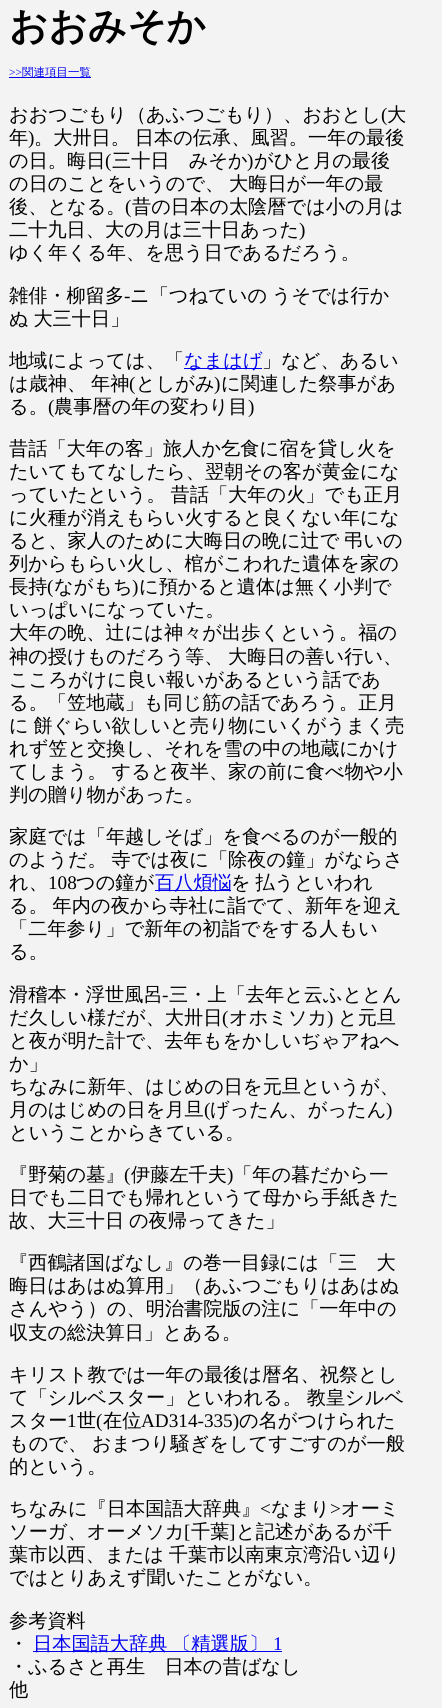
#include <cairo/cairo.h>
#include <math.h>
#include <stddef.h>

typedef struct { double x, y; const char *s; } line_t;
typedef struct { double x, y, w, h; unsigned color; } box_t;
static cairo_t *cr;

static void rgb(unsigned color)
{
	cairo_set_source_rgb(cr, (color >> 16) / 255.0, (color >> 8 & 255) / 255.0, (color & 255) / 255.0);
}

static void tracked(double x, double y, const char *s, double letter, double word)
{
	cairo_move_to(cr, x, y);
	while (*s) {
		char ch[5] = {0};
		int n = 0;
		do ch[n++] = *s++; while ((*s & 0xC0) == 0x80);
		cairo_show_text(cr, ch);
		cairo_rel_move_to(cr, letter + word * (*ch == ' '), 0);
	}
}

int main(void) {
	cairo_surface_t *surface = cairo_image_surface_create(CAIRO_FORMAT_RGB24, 442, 1708);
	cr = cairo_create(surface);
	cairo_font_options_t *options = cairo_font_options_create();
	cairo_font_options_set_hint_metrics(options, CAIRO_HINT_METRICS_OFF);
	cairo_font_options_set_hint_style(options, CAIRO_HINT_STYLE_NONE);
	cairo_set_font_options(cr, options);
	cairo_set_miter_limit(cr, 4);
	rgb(0xf3f3f3);
	cairo_paint(cr);
	{
		static const box_t items[] = {
			{9, 77, 82, 1, 0x0000ee},
			{184, 368, 78, 1, 0x0000ee},
			{155, 890, 76, 1, 0x0000ee},
			{33, 1651, 249, 1, 0x0000ee},
		};
		for (size_t i = 0; i < sizeof items / sizeof *items; i++) {
			rgb(items[i].color);
			cairo_rectangle(cr, items[i].x, items[i].y, items[i].w, items[i].h);
			cairo_fill(cr);
		}
	}
	cairo_select_font_face(cr, "WenQuanYi Zen Hei", CAIRO_FONT_SLANT_NORMAL, CAIRO_FONT_WEIGHT_BOLD);
	cairo_set_font_size(cr, 38.5);
	rgb(0x000000);
	cairo_move_to(cr, 9, 39);
	cairo_show_text(cr, "おおみそか");
	cairo_select_font_face(cr, "Liberation Serif", CAIRO_FONT_SLANT_NORMAL, CAIRO_FONT_WEIGHT_NORMAL);
	cairo_set_font_size(cr, 11.5);
	rgb(0x0000ee);
	cairo_move_to(cr, 9, 76);
	cairo_show_text(cr, ">>");
	cairo_select_font_face(cr, "WenQuanYi Zen Hei Medium", CAIRO_FONT_SLANT_NORMAL, CAIRO_FONT_WEIGHT_NORMAL);
	cairo_move_to(cr, 22, 76);
	cairo_show_text(cr, "関連項目一覧");
	cairo_set_font_size(cr, 19.2);
	rgb(0x000000);
	cairo_move_to(cr, 9, 121);
	cairo_show_text(cr, "おおつごもり（あふつごもり）、おおとし");
	cairo_select_font_face(cr, "Liberation Serif", CAIRO_FONT_SLANT_NORMAL, CAIRO_FONT_WEIGHT_NORMAL);
	cairo_move_to(cr, 381, 121);
	cairo_show_text(cr, "(");
	cairo_select_font_face(cr, "WenQuanYi Zen Hei Medium", CAIRO_FONT_SLANT_NORMAL, CAIRO_FONT_WEIGHT_NORMAL);
	cairo_move_to(cr, 387, 121);
	cairo_show_text(cr, "大");
	cairo_move_to(cr, 9, 144);
	cairo_show_text(cr, "年");
	cairo_select_font_face(cr, "Liberation Serif", CAIRO_FONT_SLANT_NORMAL, CAIRO_FONT_WEIGHT_NORMAL);
	cairo_move_to(cr, 28, 144);
	cairo_show_text(cr, ")");
	cairo_select_font_face(cr, "WenQuanYi Zen Hei Medium", CAIRO_FONT_SLANT_NORMAL, CAIRO_FONT_WEIGHT_NORMAL);
	tracked(34, 144, "。大卅日。 日本の伝承、風習。一年の最後", 0, -1);
	cairo_move_to(cr, 9, 167);
	cairo_show_text(cr, "の日。晦日");
	cairo_select_font_face(cr, "Liberation Serif", CAIRO_FONT_SLANT_NORMAL, CAIRO_FONT_WEIGHT_NORMAL);
	cairo_move_to(cr, 105, 167);
	cairo_show_text(cr, "(");
	cairo_select_font_face(cr, "WenQuanYi Zen Hei Medium", CAIRO_FONT_SLANT_NORMAL, CAIRO_FONT_WEIGHT_NORMAL);
	cairo_move_to(cr, 112, 167);
	cairo_show_text(cr, "三十日　みそか");
	cairo_select_font_face(cr, "Liberation Serif", CAIRO_FONT_SLANT_NORMAL, CAIRO_FONT_WEIGHT_NORMAL);
	cairo_move_to(cr, 247, 167);
	cairo_show_text(cr, ")");
	cairo_select_font_face(cr, "WenQuanYi Zen Hei Medium", CAIRO_FONT_SLANT_NORMAL, CAIRO_FONT_WEIGHT_NORMAL);
	cairo_move_to(cr, 254, 167);
	cairo_show_text(cr, "がひと月の最後");
	tracked(9, 190, "の日のことをいうので、 大晦日が一年の最", 0, -1);
	cairo_move_to(cr, 9, 213);
	cairo_show_text(cr, "後、となる。");
	cairo_select_font_face(cr, "Liberation Serif", CAIRO_FONT_SLANT_NORMAL, CAIRO_FONT_WEIGHT_NORMAL);
	cairo_move_to(cr, 125, 213);
	cairo_show_text(cr, "(");
	cairo_select_font_face(cr, "WenQuanYi Zen Hei Medium", CAIRO_FONT_SLANT_NORMAL, CAIRO_FONT_WEIGHT_NORMAL);
	cairo_move_to(cr, 132, 213);
	cairo_show_text(cr, "昔の日本の太陰暦では小の月は");
	cairo_move_to(cr, 9, 236);
	cairo_show_text(cr, "二十九日、大の月は三十日あった");
	cairo_select_font_face(cr, "Liberation Serif", CAIRO_FONT_SLANT_NORMAL, CAIRO_FONT_WEIGHT_NORMAL);
	cairo_move_to(cr, 299, 236);
	cairo_show_text(cr, ")");
	cairo_select_font_face(cr, "WenQuanYi Zen Hei Medium", CAIRO_FONT_SLANT_NORMAL, CAIRO_FONT_WEIGHT_NORMAL);
	cairo_move_to(cr, 9, 259);
	cairo_show_text(cr, "ゆく年くる年、を思う日であるだろう。");
	cairo_move_to(cr, 9, 302);
	cairo_show_text(cr, "雑俳・柳留多");
	cairo_select_font_face(cr, "Liberation Serif", CAIRO_FONT_SLANT_NORMAL, CAIRO_FONT_WEIGHT_NORMAL);
	cairo_move_to(cr, 124, 302);
	cairo_show_text(cr, "-");
	cairo_select_font_face(cr, "WenQuanYi Zen Hei Medium", CAIRO_FONT_SLANT_NORMAL, CAIRO_FONT_WEIGHT_NORMAL);
	tracked(130, 302, "ニ「つねていの うそでは行か", 0, -1);
	tracked(9, 325, "ぬ 大三十日」", 0, -1);
	cairo_move_to(cr, 9, 367);
	cairo_show_text(cr, "地域によっては、「");
	rgb(0x0000ee);
	cairo_move_to(cr, 184, 367);
	cairo_show_text(cr, "なまはげ");
	rgb(0x000000);
	cairo_move_to(cr, 262, 367);
	cairo_show_text(cr, "」など、あるい");
	tracked(9, 390, "は歳神、 年神", 0, -1);
	cairo_select_font_face(cr, "Liberation Serif", CAIRO_FONT_SLANT_NORMAL, CAIRO_FONT_WEIGHT_NORMAL);
	cairo_move_to(cr, 129, 390);
	cairo_show_text(cr, "(");
	cairo_select_font_face(cr, "WenQuanYi Zen Hei Medium", CAIRO_FONT_SLANT_NORMAL, CAIRO_FONT_WEIGHT_NORMAL);
	cairo_move_to(cr, 136, 390);
	cairo_show_text(cr, "としがみ");
	cairo_select_font_face(cr, "Liberation Serif", CAIRO_FONT_SLANT_NORMAL, CAIRO_FONT_WEIGHT_NORMAL);
	cairo_move_to(cr, 214, 390);
	cairo_show_text(cr, ")");
	cairo_select_font_face(cr, "WenQuanYi Zen Hei Medium", CAIRO_FONT_SLANT_NORMAL, CAIRO_FONT_WEIGHT_NORMAL);
	cairo_move_to(cr, 221, 390);
	cairo_show_text(cr, "に関連した祭事があ");
	cairo_move_to(cr, 9, 413);
	cairo_show_text(cr, "る。");
	cairo_select_font_face(cr, "Liberation Serif", CAIRO_FONT_SLANT_NORMAL, CAIRO_FONT_WEIGHT_NORMAL);
	cairo_move_to(cr, 48, 413);
	cairo_show_text(cr, "(");
	cairo_select_font_face(cr, "WenQuanYi Zen Hei Medium", CAIRO_FONT_SLANT_NORMAL, CAIRO_FONT_WEIGHT_NORMAL);
	cairo_move_to(cr, 54, 413);
	cairo_show_text(cr, "農事暦の年の変わり目");
	cairo_select_font_face(cr, "Liberation Serif", CAIRO_FONT_SLANT_NORMAL, CAIRO_FONT_WEIGHT_NORMAL);
	cairo_move_to(cr, 248, 413);
	cairo_show_text(cr, ")");
	cairo_select_font_face(cr, "WenQuanYi Zen Hei Medium", CAIRO_FONT_SLANT_NORMAL, CAIRO_FONT_WEIGHT_NORMAL);
	cairo_move_to(cr, 9, 455);
	cairo_show_text(cr, "昔話「大年の客」旅人か乞食に宿を貸し火を");
	cairo_move_to(cr, 9, 478);
	cairo_show_text(cr, "たいてもてなしたら、翌朝その客が黄金にな");
	tracked(9, 501, "っていたという。 昔話「大年の火」でも正月", 0, -1);
	cairo_move_to(cr, 9, 524);
	cairo_show_text(cr, "に火種が消えもらい火すると良くない年にな");
	tracked(9, 547, "ると、家人のために大晦日の晩に辻で 弔いの", 0, -1);
	cairo_move_to(cr, 9, 570);
	cairo_show_text(cr, "列からもらい火し、棺がこわれた遺体を家の");
	cairo_move_to(cr, 9, 593);
	cairo_show_text(cr, "長持");
	cairo_select_font_face(cr, "Liberation Serif", CAIRO_FONT_SLANT_NORMAL, CAIRO_FONT_WEIGHT_NORMAL);
	cairo_move_to(cr, 47, 593);
	cairo_show_text(cr, "(");
	cairo_select_font_face(cr, "WenQuanYi Zen Hei Medium", CAIRO_FONT_SLANT_NORMAL, CAIRO_FONT_WEIGHT_NORMAL);
	cairo_move_to(cr, 54, 593);
	cairo_show_text(cr, "ながもち");
	cairo_select_font_face(cr, "Liberation Serif", CAIRO_FONT_SLANT_NORMAL, CAIRO_FONT_WEIGHT_NORMAL);
	cairo_move_to(cr, 132, 593);
	cairo_show_text(cr, ")");
	cairo_select_font_face(cr, "WenQuanYi Zen Hei Medium", CAIRO_FONT_SLANT_NORMAL, CAIRO_FONT_WEIGHT_NORMAL);
	{
		static const line_t items[] = {
			{139, 593, "に預かると遺体は無く小判で"},
			{9, 616, "いっぱいになっていた。"},
			{9, 639, "大年の晩、辻には神々が出歩くという。福の"},
		};
		for (size_t i = 0; i < sizeof items / sizeof *items; i++) {
			cairo_move_to(cr, items[i].x, items[i].y);
			cairo_show_text(cr, items[i].s);
		}
	}
	tracked(9, 663, "神の授けものだろう等、 大晦日の善い行い、", 0, -1);
	cairo_move_to(cr, 9, 686);
	cairo_show_text(cr, "こころがけに良い報いがあるという話であ");
	cairo_move_to(cr, 9, 709);
	cairo_show_text(cr, "る。「笠地蔵」も同じ筋の話であろう。正月");
	tracked(9, 732, "に 餅ぐらい欲しいと売り物にいくがうまく売", 0, -1);
	cairo_move_to(cr, 9, 755);
	cairo_show_text(cr, "れず笠と交換し、それを雪の中の地蔵にかけ");
	tracked(9, 778, "てしまう。 すると夜半、家の前に食べ物や小", 0, -1);
	cairo_move_to(cr, 9, 801);
	cairo_show_text(cr, "判の贈り物があった。");
	cairo_move_to(cr, 9, 843);
	cairo_show_text(cr, "家庭では「年越しそば」を食べるのが一般的");
	tracked(9, 866, "のようだ。 寺では夜に「除夜の鐘」がならさ", 0, -1);
	cairo_move_to(cr, 9, 889);
	cairo_show_text(cr, "れ、");
	cairo_select_font_face(cr, "Liberation Serif", CAIRO_FONT_SLANT_NORMAL, CAIRO_FONT_WEIGHT_NORMAL);
	cairo_move_to(cr, 48, 889);
	cairo_show_text(cr, "108");
	cairo_select_font_face(cr, "WenQuanYi Zen Hei Medium", CAIRO_FONT_SLANT_NORMAL, CAIRO_FONT_WEIGHT_NORMAL);
	cairo_move_to(cr, 76, 889);
	cairo_show_text(cr, "つの鐘が");
	rgb(0x0000ee);
	cairo_move_to(cr, 155, 889);
	cairo_show_text(cr, "百八煩悩");
	rgb(0x000000);
	tracked(231, 889, "を 払うといわれ", 0, -1);
	tracked(9, 912, "る。 年内の夜から寺社に詣でて、新年を迎え", 0, -1);
	{
		static const line_t items[] = {
			{9, 935, "「二年参り」で新年の初詣でをする人もい"},
			{9, 958, "る。"},
			{9, 1001, "滑稽本・浮世風呂"},
		};
		for (size_t i = 0; i < sizeof items / sizeof *items; i++) {
			cairo_move_to(cr, items[i].x, items[i].y);
			cairo_show_text(cr, items[i].s);
		}
	}
	cairo_select_font_face(cr, "Liberation Serif", CAIRO_FONT_SLANT_NORMAL, CAIRO_FONT_WEIGHT_NORMAL);
	cairo_move_to(cr, 162, 1001);
	cairo_show_text(cr, "-");
	cairo_select_font_face(cr, "WenQuanYi Zen Hei Medium", CAIRO_FONT_SLANT_NORMAL, CAIRO_FONT_WEIGHT_NORMAL);
	cairo_move_to(cr, 169, 1001);
	cairo_show_text(cr, "三・上「去年と云ふととん");
	cairo_move_to(cr, 9, 1024);
	cairo_show_text(cr, "だ久しい様だが、大卅日");
	cairo_select_font_face(cr, "Liberation Serif", CAIRO_FONT_SLANT_NORMAL, CAIRO_FONT_WEIGHT_NORMAL);
	cairo_move_to(cr, 222, 1024);
	cairo_show_text(cr, "(");
	cairo_select_font_face(cr, "WenQuanYi Zen Hei Medium", CAIRO_FONT_SLANT_NORMAL, CAIRO_FONT_WEIGHT_NORMAL);
	cairo_move_to(cr, 229, 1024);
	cairo_show_text(cr, "オホミソカ");
	cairo_select_font_face(cr, "Liberation Serif", CAIRO_FONT_SLANT_NORMAL, CAIRO_FONT_WEIGHT_NORMAL);
	cairo_move_to(cr, 327, 1024);
	cairo_show_text(cr, ")");
	cairo_select_font_face(cr, "WenQuanYi Zen Hei Medium", CAIRO_FONT_SLANT_NORMAL, CAIRO_FONT_WEIGHT_NORMAL);
	{
		static const line_t items[] = {
			{338, 1024, "と元旦"},
			{9, 1047, "と夜が明た計で、去年もをかしいぢゃアねへ"},
			{9, 1070, "か」"},
			{9, 1093, "ちなみに新年、はじめの日を元旦というが、"},
			{9, 1116, "月のはじめの日を月旦"},
		};
		for (size_t i = 0; i < sizeof items / sizeof *items; i++) {
			cairo_move_to(cr, items[i].x, items[i].y);
			cairo_show_text(cr, items[i].s);
		}
	}
	cairo_select_font_face(cr, "Liberation Serif", CAIRO_FONT_SLANT_NORMAL, CAIRO_FONT_WEIGHT_NORMAL);
	cairo_move_to(cr, 204, 1116);
	cairo_show_text(cr, "(");
	cairo_select_font_face(cr, "WenQuanYi Zen Hei Medium", CAIRO_FONT_SLANT_NORMAL, CAIRO_FONT_WEIGHT_NORMAL);
	cairo_move_to(cr, 210, 1116);
	cairo_show_text(cr, "げったん、がったん");
	cairo_select_font_face(cr, "Liberation Serif", CAIRO_FONT_SLANT_NORMAL, CAIRO_FONT_WEIGHT_NORMAL);
	cairo_move_to(cr, 386, 1116);
	cairo_show_text(cr, ")");
	cairo_select_font_face(cr, "WenQuanYi Zen Hei Medium", CAIRO_FONT_SLANT_NORMAL, CAIRO_FONT_WEIGHT_NORMAL);
	cairo_move_to(cr, 9, 1139);
	cairo_show_text(cr, "ということからきている。");
	cairo_move_to(cr, 9, 1181);
	cairo_show_text(cr, "『野菊の墓』");
	cairo_select_font_face(cr, "Liberation Serif", CAIRO_FONT_SLANT_NORMAL, CAIRO_FONT_WEIGHT_NORMAL);
	cairo_move_to(cr, 124, 1181);
	cairo_show_text(cr, "(");
	cairo_select_font_face(cr, "WenQuanYi Zen Hei Medium", CAIRO_FONT_SLANT_NORMAL, CAIRO_FONT_WEIGHT_NORMAL);
	cairo_move_to(cr, 131, 1181);
	cairo_show_text(cr, "伊藤左千夫");
	cairo_select_font_face(cr, "Liberation Serif", CAIRO_FONT_SLANT_NORMAL, CAIRO_FONT_WEIGHT_NORMAL);
	cairo_move_to(cr, 227, 1181);
	cairo_show_text(cr, ")");
	cairo_select_font_face(cr, "WenQuanYi Zen Hei Medium", CAIRO_FONT_SLANT_NORMAL, CAIRO_FONT_WEIGHT_NORMAL);
	cairo_move_to(cr, 233, 1181);
	cairo_show_text(cr, "「年の暮だから一");
	cairo_move_to(cr, 9, 1204);
	cairo_show_text(cr, "日でも二日でも帰れというて母から手紙きた");
	tracked(9, 1227, "故、大三十日 の夜帰ってきた」", 0, -1);
	{
		static const line_t items[] = {
			{9, 1269, "『西鶴諸国ばなし』の巻一目録には「三　大"},
			{9, 1292, "晦日はあはぬ算用」（あふつごもりはあはぬ"},
			{9, 1315, "さんやう）の、明治書院版の注に「一年中の"},
			{9, 1339, "収支の総決算日」とある。"},
			{9, 1381, "キリスト教では一年の最後は暦名、祝祭とし"},
		};
		for (size_t i = 0; i < sizeof items / sizeof *items; i++) {
			cairo_move_to(cr, items[i].x, items[i].y);
			cairo_show_text(cr, items[i].s);
		}
	}
	tracked(9, 1404, "て「シルベスター」といわれる。 教皇シルベ", 0, -1);
	cairo_move_to(cr, 9, 1427);
	cairo_show_text(cr, "スター");
	cairo_select_font_face(cr, "Liberation Serif", CAIRO_FONT_SLANT_NORMAL, CAIRO_FONT_WEIGHT_NORMAL);
	cairo_move_to(cr, 67, 1427);
	cairo_show_text(cr, "1");
	cairo_select_font_face(cr, "WenQuanYi Zen Hei Medium", CAIRO_FONT_SLANT_NORMAL, CAIRO_FONT_WEIGHT_NORMAL);
	cairo_move_to(cr, 77, 1427);
	cairo_show_text(cr, "世");
	cairo_select_font_face(cr, "Liberation Serif", CAIRO_FONT_SLANT_NORMAL, CAIRO_FONT_WEIGHT_NORMAL);
	cairo_move_to(cr, 96, 1427);
	cairo_show_text(cr, "(");
	cairo_select_font_face(cr, "WenQuanYi Zen Hei Medium", CAIRO_FONT_SLANT_NORMAL, CAIRO_FONT_WEIGHT_NORMAL);
	cairo_move_to(cr, 103, 1427);
	cairo_show_text(cr, "在位");
	cairo_select_font_face(cr, "Liberation Serif", CAIRO_FONT_SLANT_NORMAL, CAIRO_FONT_WEIGHT_NORMAL);
	cairo_move_to(cr, 141, 1427);
	cairo_show_text(cr, "AD314-335)");
	cairo_select_font_face(cr, "WenQuanYi Zen Hei Medium", CAIRO_FONT_SLANT_NORMAL, CAIRO_FONT_WEIGHT_NORMAL);
	cairo_move_to(cr, 239, 1427);
	cairo_show_text(cr, "の名がつけられた");
	tracked(9, 1450, "もので、 おまつり騒ぎをしてすごすのが一般", 0, -1);
	cairo_move_to(cr, 9, 1473);
	cairo_show_text(cr, "的という。");
	cairo_move_to(cr, 9, 1515);
	cairo_show_text(cr, "ちなみに『日本国語大辞典』");
	cairo_select_font_face(cr, "Liberation Serif", CAIRO_FONT_SLANT_NORMAL, CAIRO_FONT_WEIGHT_NORMAL);
	cairo_move_to(cr, 260, 1515);
	cairo_show_text(cr, "<");
	cairo_select_font_face(cr, "WenQuanYi Zen Hei Medium", CAIRO_FONT_SLANT_NORMAL, CAIRO_FONT_WEIGHT_NORMAL);
	cairo_move_to(cr, 271, 1515);
	cairo_show_text(cr, "なまり");
	cairo_select_font_face(cr, "Liberation Serif", CAIRO_FONT_SLANT_NORMAL, CAIRO_FONT_WEIGHT_NORMAL);
	cairo_move_to(cr, 330, 1515);
	cairo_show_text(cr, ">");
	cairo_select_font_face(cr, "WenQuanYi Zen Hei Medium", CAIRO_FONT_SLANT_NORMAL, CAIRO_FONT_WEIGHT_NORMAL);
	cairo_move_to(cr, 341, 1515);
	cairo_show_text(cr, "オーミ");
	cairo_move_to(cr, 9, 1538);
	cairo_show_text(cr, "ソーガ、オーメソカ");
	cairo_select_font_face(cr, "Liberation Serif", CAIRO_FONT_SLANT_NORMAL, CAIRO_FONT_WEIGHT_NORMAL);
	cairo_move_to(cr, 184, 1538);
	cairo_show_text(cr, "[");
	cairo_select_font_face(cr, "WenQuanYi Zen Hei Medium", CAIRO_FONT_SLANT_NORMAL, CAIRO_FONT_WEIGHT_NORMAL);
	cairo_move_to(cr, 191, 1538);
	cairo_show_text(cr, "千葉");
	cairo_select_font_face(cr, "Liberation Serif", CAIRO_FONT_SLANT_NORMAL, CAIRO_FONT_WEIGHT_NORMAL);
	cairo_move_to(cr, 229, 1538);
	cairo_show_text(cr, "]");
	cairo_select_font_face(cr, "WenQuanYi Zen Hei Medium", CAIRO_FONT_SLANT_NORMAL, CAIRO_FONT_WEIGHT_NORMAL);
	cairo_move_to(cr, 236, 1538);
	cairo_show_text(cr, "と記述があるが千");
	tracked(9, 1561, "葉市以西、または 千葉市以南東京湾沿い辺り", 0, -1);
	{
		static const line_t items[] = {
			{9, 1584, "ではとりあえず聞いたことがない。"},
			{9, 1627, "参考資料"},
			{9, 1650, "・"},
		};
		for (size_t i = 0; i < sizeof items / sizeof *items; i++) {
			cairo_move_to(cr, items[i].x, items[i].y);
			cairo_show_text(cr, items[i].s);
		}
	}
	rgb(0x0000ee);
	tracked(33, 1650, "日本国語大辞典 〔精選版〕", 0, -1);
	cairo_select_font_face(cr, "Liberation Serif", CAIRO_FONT_SLANT_NORMAL, CAIRO_FONT_WEIGHT_NORMAL);
	cairo_move_to(cr, 273, 1650);
	cairo_show_text(cr, "1");
	cairo_select_font_face(cr, "WenQuanYi Zen Hei Medium", CAIRO_FONT_SLANT_NORMAL, CAIRO_FONT_WEIGHT_NORMAL);
	rgb(0x000000);
	cairo_move_to(cr, 9, 1673);
	cairo_show_text(cr, "・ふるさと再生　日本の昔ばなし");
	cairo_move_to(cr, 9, 1696);
	cairo_show_text(cr, "他");
	cairo_surface_write_to_png(surface, "page.png");
	cairo_font_options_destroy(options);
	cairo_destroy(cr);
	cairo_surface_destroy(surface);
	return 0;
}
